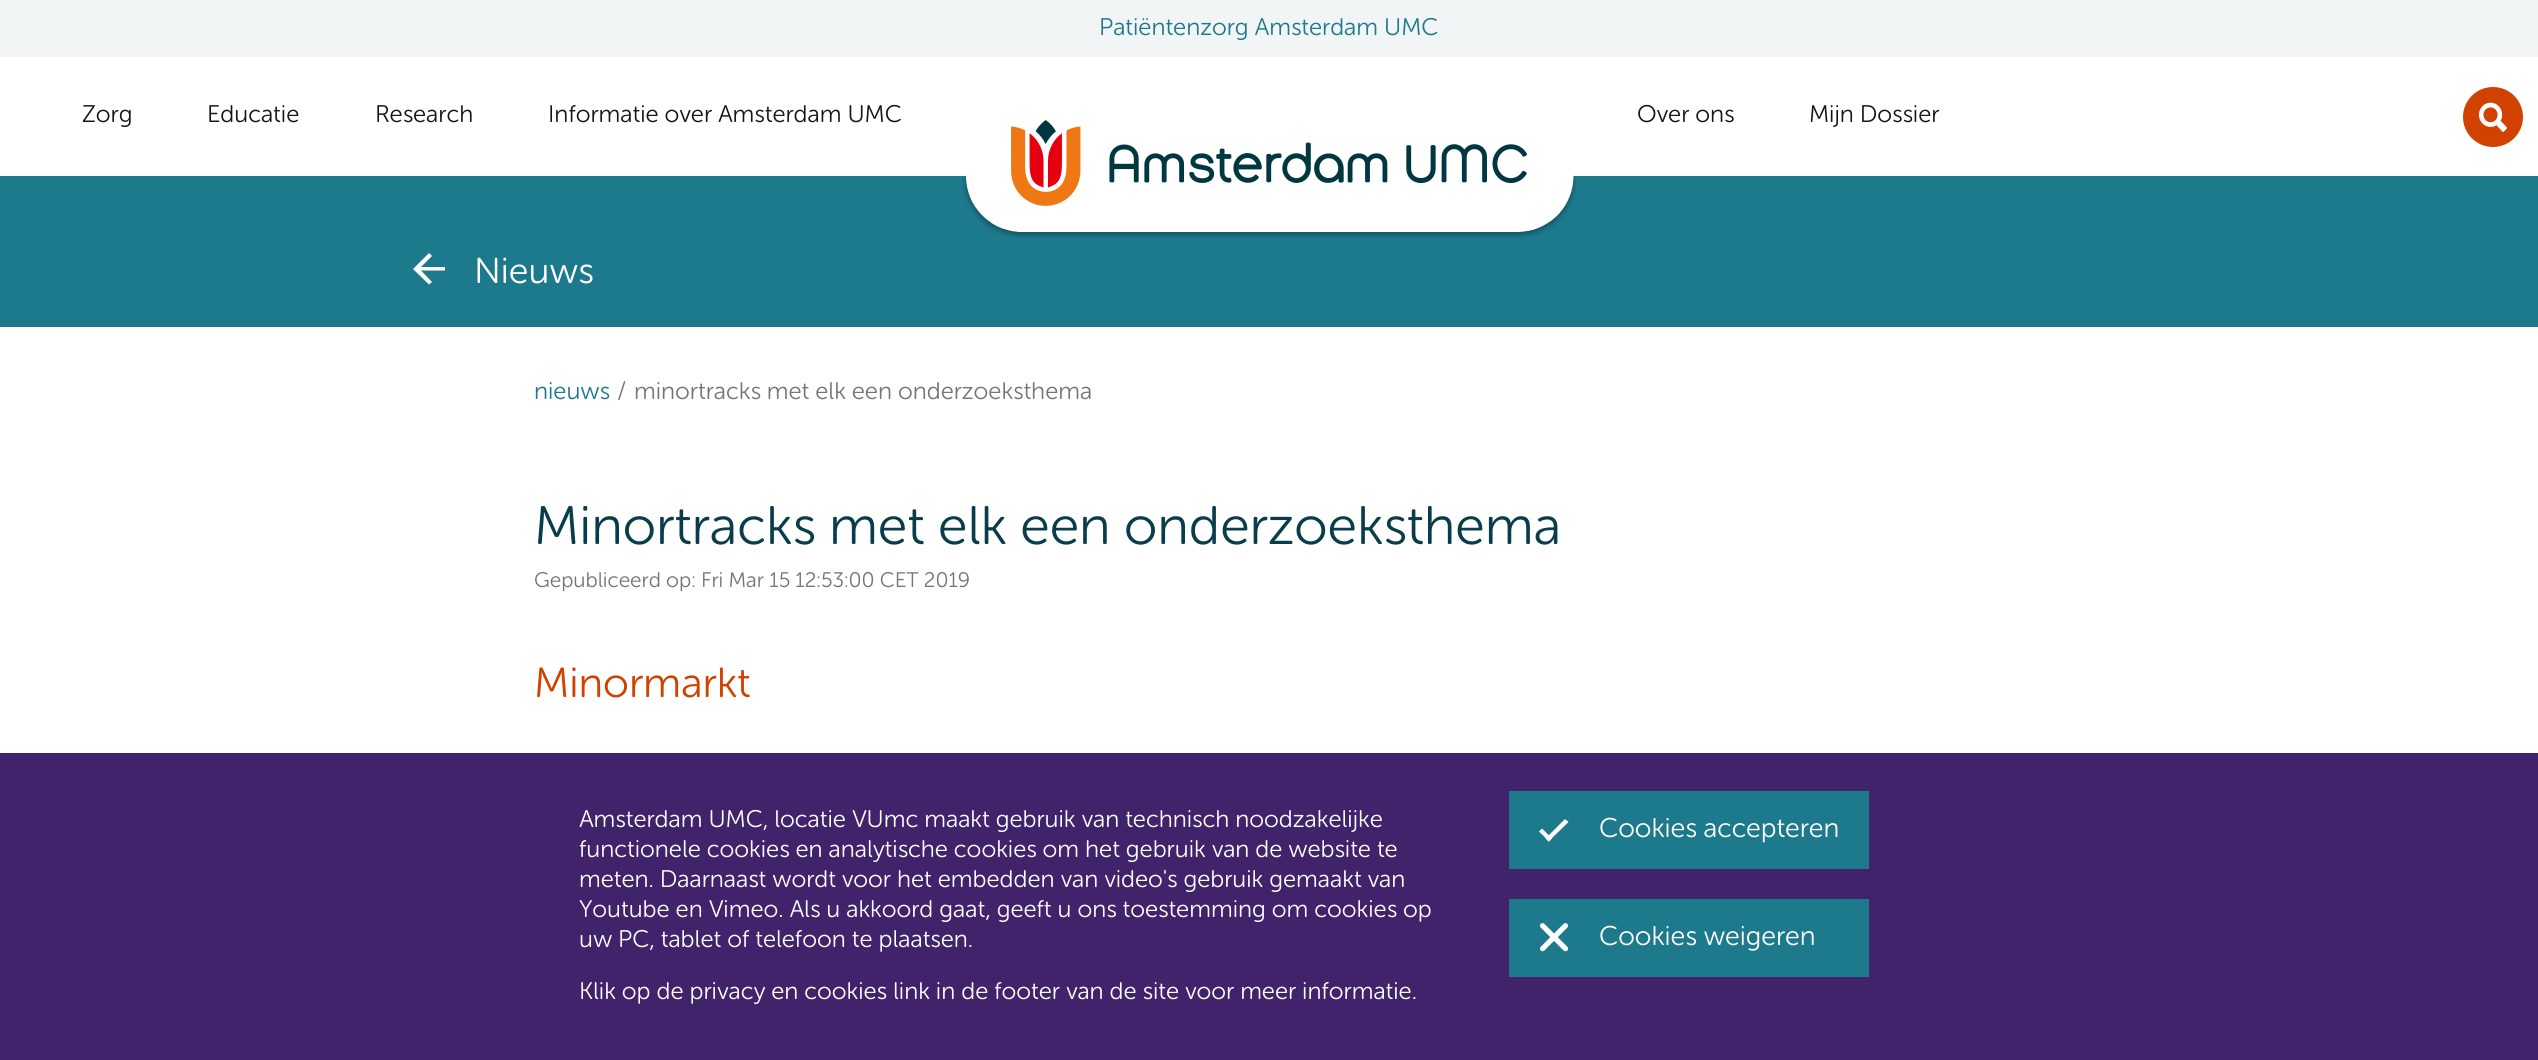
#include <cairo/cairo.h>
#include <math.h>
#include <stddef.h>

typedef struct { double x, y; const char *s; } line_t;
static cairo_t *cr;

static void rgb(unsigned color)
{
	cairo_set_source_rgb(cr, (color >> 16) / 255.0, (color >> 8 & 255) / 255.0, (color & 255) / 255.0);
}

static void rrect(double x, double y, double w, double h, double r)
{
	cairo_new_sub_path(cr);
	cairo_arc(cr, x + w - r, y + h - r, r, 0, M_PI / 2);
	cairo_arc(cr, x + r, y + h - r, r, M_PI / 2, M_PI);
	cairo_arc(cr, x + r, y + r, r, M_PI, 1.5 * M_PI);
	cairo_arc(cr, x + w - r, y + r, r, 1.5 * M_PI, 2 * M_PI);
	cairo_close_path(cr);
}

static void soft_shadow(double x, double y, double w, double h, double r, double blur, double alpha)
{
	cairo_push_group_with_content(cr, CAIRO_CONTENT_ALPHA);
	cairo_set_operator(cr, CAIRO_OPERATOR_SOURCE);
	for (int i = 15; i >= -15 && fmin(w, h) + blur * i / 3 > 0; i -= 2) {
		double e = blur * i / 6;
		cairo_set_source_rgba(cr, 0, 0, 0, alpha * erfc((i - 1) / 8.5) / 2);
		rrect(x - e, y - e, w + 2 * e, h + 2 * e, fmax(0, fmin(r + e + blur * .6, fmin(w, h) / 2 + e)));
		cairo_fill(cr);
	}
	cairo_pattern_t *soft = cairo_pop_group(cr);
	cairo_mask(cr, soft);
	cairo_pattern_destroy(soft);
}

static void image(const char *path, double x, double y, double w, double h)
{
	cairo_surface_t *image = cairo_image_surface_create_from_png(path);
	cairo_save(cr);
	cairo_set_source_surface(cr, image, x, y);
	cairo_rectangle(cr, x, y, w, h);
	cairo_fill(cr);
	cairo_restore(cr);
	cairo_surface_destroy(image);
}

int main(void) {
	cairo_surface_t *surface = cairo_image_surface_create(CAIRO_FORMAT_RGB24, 2538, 1060);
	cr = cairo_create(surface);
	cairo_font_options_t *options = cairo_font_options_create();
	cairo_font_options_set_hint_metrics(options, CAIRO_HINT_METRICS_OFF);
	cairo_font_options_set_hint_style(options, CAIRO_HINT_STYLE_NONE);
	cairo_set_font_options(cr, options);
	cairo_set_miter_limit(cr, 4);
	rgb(0xffffff);
	cairo_paint(cr);
	cairo_save(cr);
	cairo_set_fill_rule(cr, CAIRO_FILL_RULE_EVEN_ODD);
	cairo_new_path(cr);
	cairo_move_to(cr, 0, 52);
	cairo_line_to(cr, 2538, 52);
	cairo_line_to(cr, 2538, 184);
	cairo_line_to(cr, 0, 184);
	cairo_close_path(cr);
	cairo_move_to(cr, 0, 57);
	cairo_line_to(cr, 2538, 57);
	cairo_line_to(cr, 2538, 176);
	cairo_line_to(cr, 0, 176);
	cairo_close_path(cr);
	cairo_clip(cr);
	rgb(0x000000);
	soft_shadow(0, 59, 2538, 118, 0, 2, 0.2);
	cairo_restore(cr);
	cairo_save(cr);
	cairo_set_fill_rule(cr, CAIRO_FILL_RULE_EVEN_ODD);
	cairo_new_path(cr);
	cairo_move_to(cr, 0, 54);
	cairo_line_to(cr, 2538, 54);
	cairo_line_to(cr, 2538, 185);
	cairo_line_to(cr, 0, 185);
	cairo_close_path(cr);
	cairo_move_to(cr, 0, 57);
	cairo_line_to(cr, 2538, 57);
	cairo_line_to(cr, 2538, 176);
	cairo_line_to(cr, 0, 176);
	cairo_close_path(cr);
	cairo_clip(cr);
	rgb(0x000000);
	soft_shadow(0, 60, 2538, 119, 0, 1.5, 0.12);
	cairo_restore(cr);
	cairo_save(cr);
	cairo_set_fill_rule(cr, CAIRO_FILL_RULE_EVEN_ODD);
	cairo_new_path(cr);
	cairo_move_to(cr, 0, 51);
	cairo_line_to(cr, 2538, 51);
	cairo_line_to(cr, 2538, 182);
	cairo_line_to(cr, 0, 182);
	cairo_close_path(cr);
	cairo_move_to(cr, 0, 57);
	cairo_line_to(cr, 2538, 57);
	cairo_line_to(cr, 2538, 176);
	cairo_line_to(cr, 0, 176);
	cairo_close_path(cr);
	cairo_clip(cr);
	rgb(0x000000);
	soft_shadow(0, 57, 2538, 119, 0, 1.5, 0.14);
	cairo_restore(cr);
	rgb(0xf1f5f6);
	cairo_rectangle(cr, 0, 0, 2538, 57);
	cairo_fill(cr);
	rgb(0xd14200);
	cairo_arc(cr, 2493, 117, 30, 0, 2 * M_PI);
	cairo_fill(cr);
	image("img/1.png", 2478, 102, 29, 30);
	rgb(0x1d798c);
	cairo_rectangle(cr, 0, 176, 2538, 151);
	cairo_fill(cr);
	image("img/2.png", 962, 174, 615, 65);
	image("img/3.png", 1011, 120, 516, 86);
	rgb(0xffffff);
	cairo_set_fill_rule(cr, CAIRO_FILL_RULE_EVEN_ODD);
	cairo_new_path(cr);
	cairo_move_to(cr, 445, 267);
	cairo_line_to(cr, 445, 270.5);
	cairo_line_to(cr, 421, 270.5);
	cairo_line_to(cr, 432, 282);
	cairo_line_to(cr, 429, 284.5);
	cairo_line_to(cr, 413, 269);
	cairo_line_to(cr, 429, 253);
	cairo_line_to(cr, 432, 256);
	cairo_line_to(cr, 421, 267);
	cairo_close_path(cr);
	cairo_fill(cr);
	rgb(0x40236b);
	cairo_rectangle(cr, 0, 753, 2538, 307);
	cairo_fill(cr);
	rgb(0x1d798c);
	cairo_rectangle(cr, 1509, 791, 360, 78);
	cairo_fill(cr);
	rgb(0xffffff);
	cairo_new_path(cr);
	cairo_move_to(cr, 1542, 828.5);
	cairo_line_to(cr, 1552, 838.5);
	cairo_line_to(cr, 1549, 841.5);
	cairo_line_to(cr, 1539, 831.5);
	cairo_close_path(cr);
	cairo_fill(cr);
	cairo_new_path(cr);
	cairo_move_to(cr, 1568.5, 822);
	cairo_line_to(cr, 1548.5, 841.5);
	cairo_line_to(cr, 1545.5, 838.5);
	cairo_line_to(cr, 1565, 819);
	cairo_close_path(cr);
	cairo_fill(cr);
	rgb(0x1d798c);
	cairo_rectangle(cr, 1509, 899, 360, 78);
	cairo_fill(cr);
	image("img/4.png", 1540, 923, 28, 29);
	cairo_select_font_face(cr, "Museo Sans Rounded", CAIRO_FONT_SLANT_NORMAL, CAIRO_FONT_WEIGHT_NORMAL);
	cairo_set_font_size(cr, 24);
	cairo_move_to(cr, 1099, 35);
	cairo_show_text(cr, "Patiëntenzorg Amsterdam UMC");
	rgb(0x131516);
	{
		static const line_t items[] = {
			{82, 122, "Zorg"},
			{207, 122, "Educatie"},
			{375, 122, "Research"},
			{548, 122, "Informatie over Amsterdam UMC"},
			{1637, 122, "Over ons"},
			{1809, 122, "Mijn Dossier"},
		};
		for (size_t i = 0; i < sizeof items / sizeof *items; i++) {
			cairo_move_to(cr, items[i].x, items[i].y);
			cairo_show_text(cr, items[i].s);
		}
	}
	cairo_set_font_size(cr, 36);
	rgb(0xffffff);
	cairo_move_to(cr, 474, 283);
	cairo_show_text(cr, "Nieuws");
	cairo_set_font_size(cr, 24);
	rgb(0x1d798c);
	cairo_move_to(cr, 534, 399);
	cairo_show_text(cr, "nieuws");
	rgb(0x757575);
	cairo_move_to(cr, 617, 399);
	cairo_show_text(cr, "/");
	cairo_move_to(cr, 634, 399);
	cairo_show_text(cr, "minortracks met elk een onderzoeksthema");
	cairo_set_font_size(cr, 54);
	rgb(0x093d4a);
	cairo_move_to(cr, 534, 544);
	cairo_show_text(cr, "Minortracks met elk een onderzoeksthema");
	cairo_set_font_size(cr, 21);
	rgb(0x757575);
	cairo_move_to(cr, 534, 587);
	cairo_show_text(cr, "Gepubliceerd op: Fri Mar 15 12:53:00 CET 2019");
	cairo_set_font_size(cr, 42);
	rgb(0xd14200);
	cairo_move_to(cr, 534, 697);
	cairo_show_text(cr, "Minormarkt");
	cairo_set_font_size(cr, 24);
	rgb(0xffffff);
	{
		static const line_t items[] = {
			{579, 827, "Amsterdam UMC, locatie VUmc maakt gebruik van technisch noodzakelijke"},
			{579, 857, "functionele cookies en analytische cookies om het gebruik van de website te"},
			{579, 887, "meten. Daarnaast wordt voor het embedden van video's gebruik gemaakt van"},
			{579, 917, "Youtube en Vimeo. Als u akkoord gaat, geeft u ons toestemming om cookies op"},
			{579, 947, "uw PC, tablet of telefoon te plaatsen."},
			{579, 999, "Klik op de privacy en cookies link in de footer van de site voor meer informatie."},
		};
		for (size_t i = 0; i < sizeof items / sizeof *items; i++) {
			cairo_move_to(cr, items[i].x, items[i].y);
			cairo_show_text(cr, items[i].s);
		}
	}
	cairo_set_font_size(cr, 27);
	cairo_move_to(cr, 1599, 837);
	cairo_show_text(cr, "Cookies accepteren");
	cairo_move_to(cr, 1599, 945);
	cairo_show_text(cr, "Cookies weigeren");
	cairo_surface_write_to_png(surface, "page.png");
	cairo_font_options_destroy(options);
	cairo_destroy(cr);
	cairo_surface_destroy(surface);
	return 0;
}
